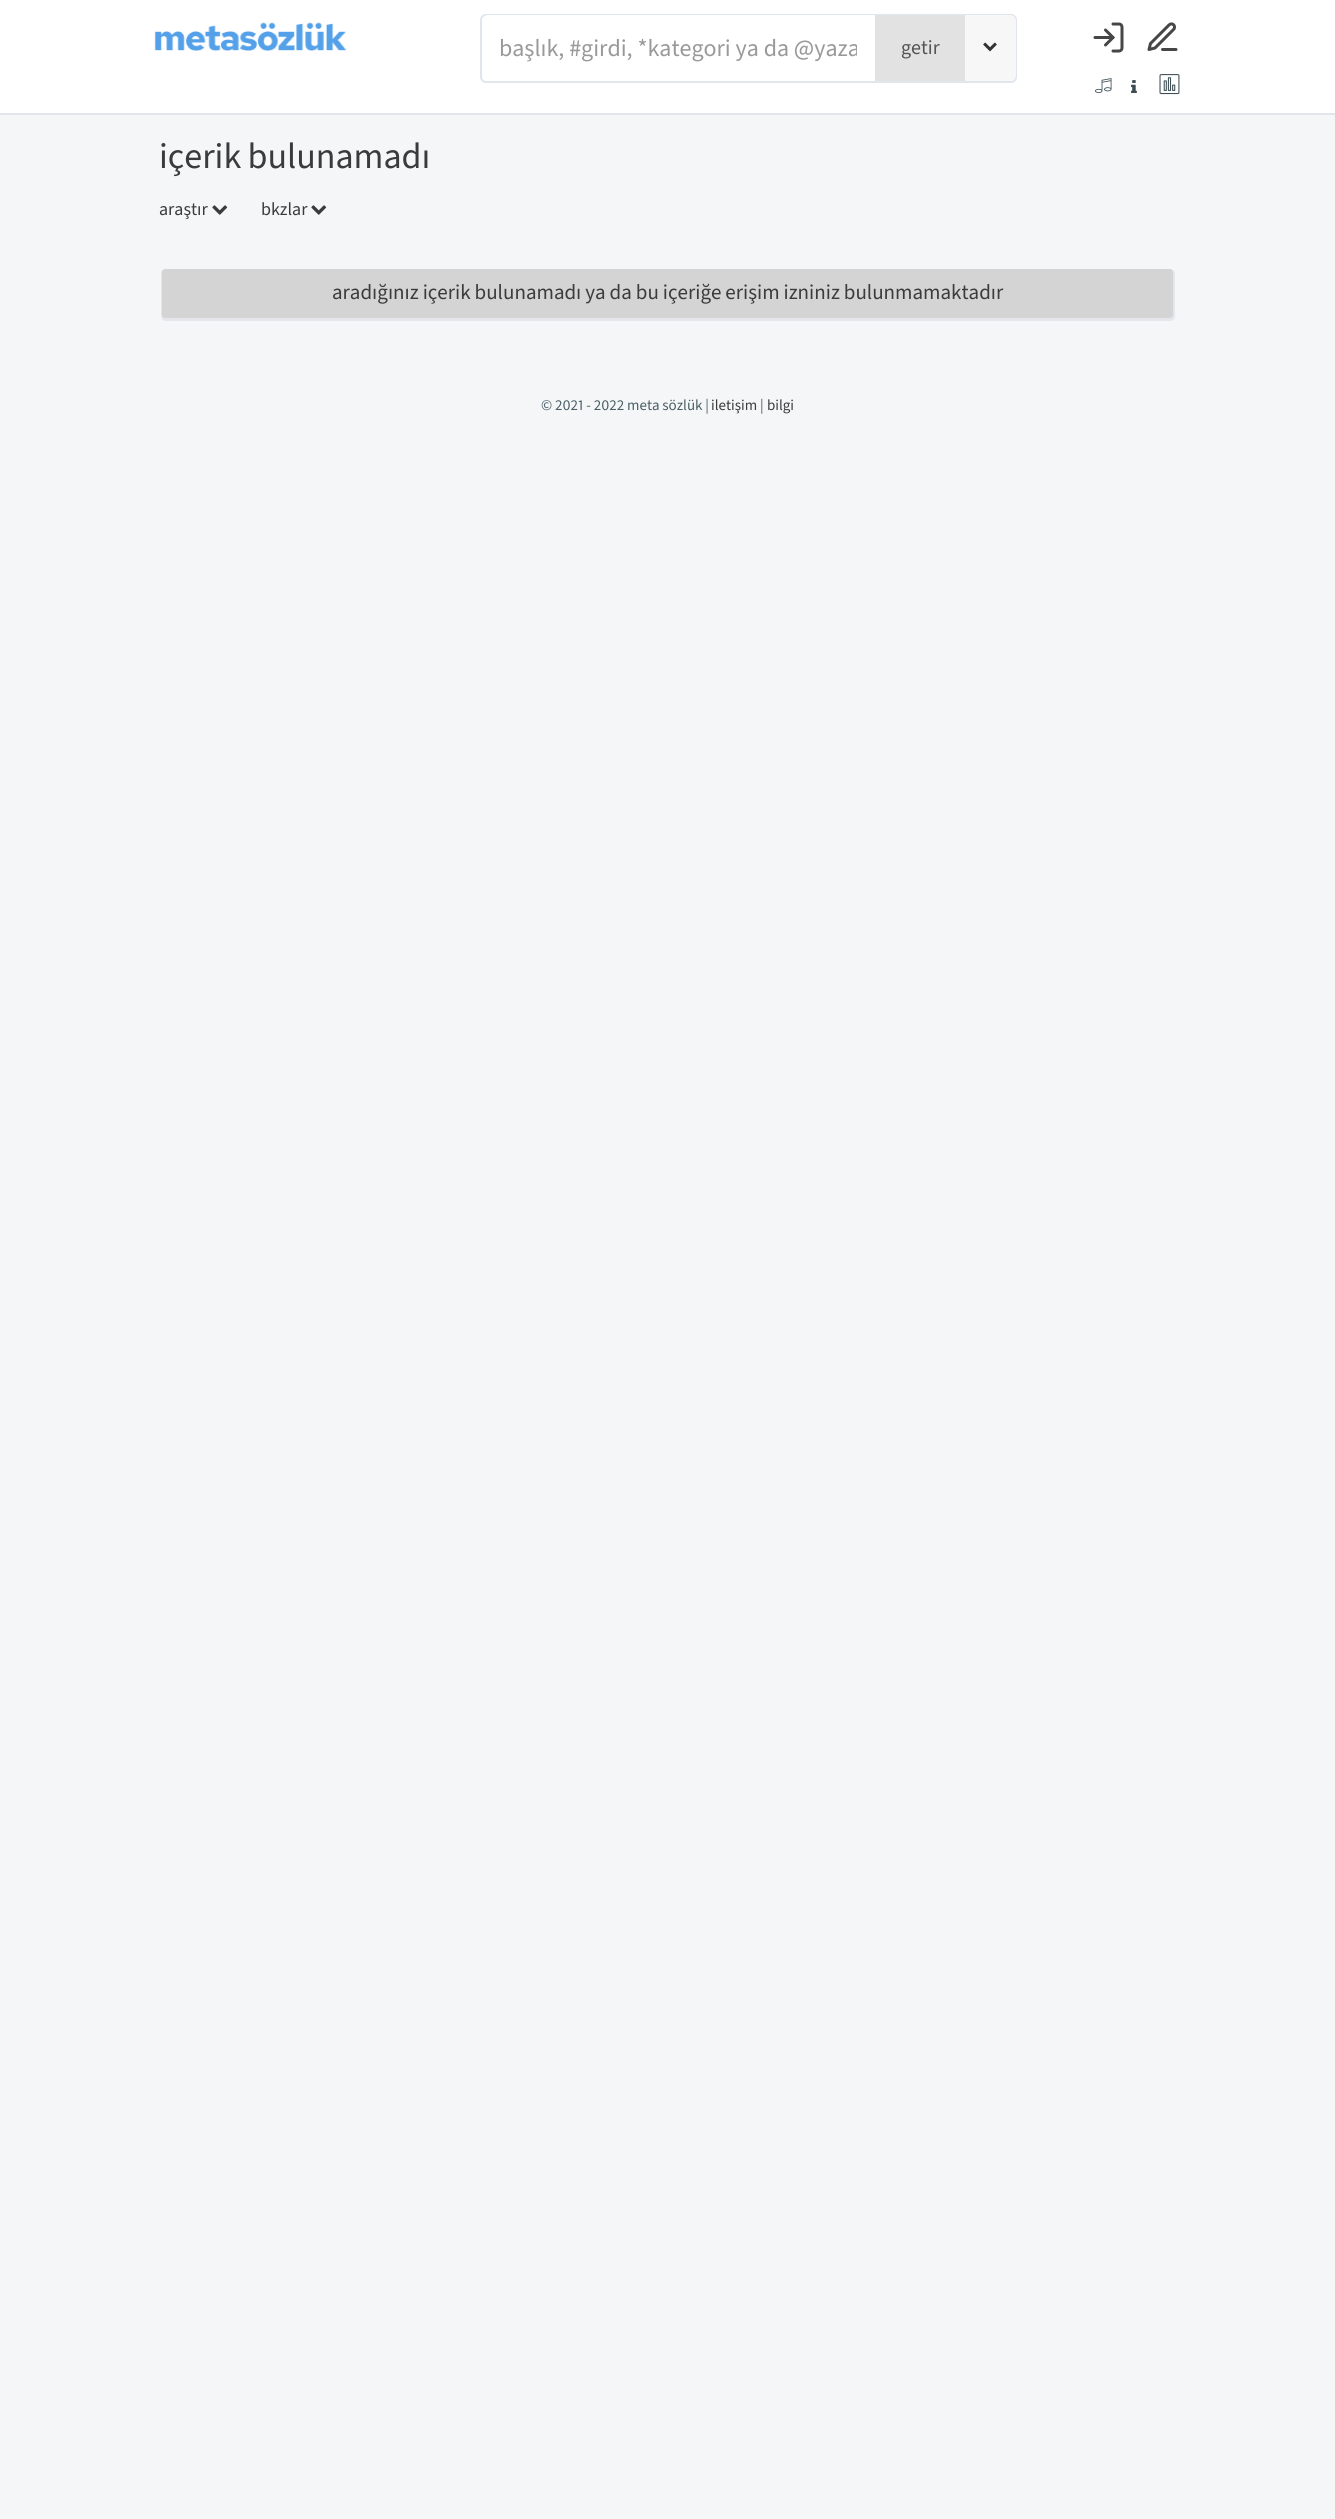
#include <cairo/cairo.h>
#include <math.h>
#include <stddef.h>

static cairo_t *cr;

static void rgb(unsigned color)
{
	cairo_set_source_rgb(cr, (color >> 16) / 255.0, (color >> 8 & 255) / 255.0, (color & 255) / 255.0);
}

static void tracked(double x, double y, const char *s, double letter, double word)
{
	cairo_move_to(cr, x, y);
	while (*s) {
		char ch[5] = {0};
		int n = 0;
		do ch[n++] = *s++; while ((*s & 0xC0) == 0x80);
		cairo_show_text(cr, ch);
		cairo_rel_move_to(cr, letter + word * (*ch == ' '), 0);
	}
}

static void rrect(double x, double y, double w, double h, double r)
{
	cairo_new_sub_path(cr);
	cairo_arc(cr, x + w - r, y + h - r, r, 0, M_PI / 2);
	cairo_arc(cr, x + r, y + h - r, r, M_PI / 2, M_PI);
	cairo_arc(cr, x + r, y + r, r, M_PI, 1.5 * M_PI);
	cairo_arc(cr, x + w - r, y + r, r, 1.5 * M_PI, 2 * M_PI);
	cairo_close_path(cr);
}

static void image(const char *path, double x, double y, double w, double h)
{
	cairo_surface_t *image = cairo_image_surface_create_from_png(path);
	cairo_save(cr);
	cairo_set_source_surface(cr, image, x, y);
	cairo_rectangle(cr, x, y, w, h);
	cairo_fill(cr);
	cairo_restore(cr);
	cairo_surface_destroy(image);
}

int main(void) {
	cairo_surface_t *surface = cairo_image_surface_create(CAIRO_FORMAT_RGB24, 1335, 2519);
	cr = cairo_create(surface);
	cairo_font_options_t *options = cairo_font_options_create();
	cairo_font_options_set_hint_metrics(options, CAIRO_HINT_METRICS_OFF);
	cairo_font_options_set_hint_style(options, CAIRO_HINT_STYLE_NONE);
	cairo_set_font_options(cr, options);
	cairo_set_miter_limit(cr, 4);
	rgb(0xf5f6f7);
	cairo_paint(cr);
	rgb(0xffffff);
	cairo_rectangle(cr, 0, 0, 1335, 113);
	cairo_fill(cr);
	rgb(0xe0e6ec);
	cairo_rectangle(cr, 0, 113, 1335, 2);
	cairo_fill(cr);
	image("img/1.png", 154, 22, 193, 29);
	rrect(481, 15, 535, 67, 5);
	cairo_stroke(cr);
	rgb(0xffffff);
	cairo_new_path(cr);
	cairo_move_to(cr, 488, 15);
	cairo_line_to(cr, 875, 15);
	cairo_line_to(cr, 875, 81);
	cairo_line_to(cr, 488, 81);
	cairo_curve_to(cr, 484.5, 81, 482, 78.5, 482, 75);
	cairo_line_to(cr, 482, 21);
	cairo_curve_to(cr, 482, 17.5, 484.5, 15, 488, 15);
	cairo_close_path(cr);
	cairo_fill(cr);
	rgb(0xe2e2e2);
	cairo_rectangle(cr, 875, 15, 90, 66);
	cairo_fill(cr);
	rgb(0xf7f7f7);
	cairo_new_path(cr);
	cairo_move_to(cr, 965, 15);
	cairo_line_to(cr, 1010, 15);
	cairo_curve_to(cr, 1013.5, 15, 1016, 17.5, 1016, 21);
	cairo_line_to(cr, 1016, 75);
	cairo_curve_to(cr, 1016, 78.5, 1013.5, 81, 1010, 81);
	cairo_line_to(cr, 965, 81);
	cairo_close_path(cr);
	cairo_fill(cr);
	image("img/2.png", 983, 42, 14, 10);
	image("img/3.png", 1093, 22, 31, 31);
	cairo_new_path(cr);
	cairo_move_to(cr, 1162.5, 49.5);
	cairo_line_to(cr, 1176, 49.5);
	cairo_move_to(cr, 1169, 25);
	cairo_curve_to(cr, 1172, 22, 1176, 25.5, 1174, 29);
	cairo_line_to(cr, 1155, 48);
	cairo_line_to(cr, 1149, 49.5);
	cairo_line_to(cr, 1150.5, 43.5);
	cairo_close_path(cr);
	rgb(0x464646);
	cairo_set_line_width(cr, 3);
	cairo_set_line_cap(cr, CAIRO_LINE_CAP_ROUND);
	cairo_set_line_join(cr, CAIRO_LINE_JOIN_ROUND);
	cairo_stroke(cr);
	image("img/4.png", 1095, 78, 17, 15);
	image("img/5.png", 1131, 80, 6, 13);
	image("img/6.png", 1159, 74, 21, 21);
	image("img/7.png", 212, 205, 16, 10);
	image("img/7.png", 311, 205, 16, 10);
	rgb(0xe4e6eb);
	cairo_new_path(cr);
	cairo_move_to(cr, 162, 271);
	cairo_curve_to(cr, 161, 272, 161, 273, 161, 274);
	cairo_line_to(cr, 161, 316);
	cairo_curve_to(cr, 161, 319, 163, 321, 166, 321);
	cairo_line_to(cr, 1170, 321);
	cairo_curve_to(cr, 1173, 321, 1175, 319, 1175, 316);
	cairo_line_to(cr, 1175, 274);
	cairo_curve_to(cr, 1175, 272, 1174, 270, 1172, 270);
	cairo_line_to(cr, 1173, 272);
	cairo_line_to(cr, 1173, 315);
	cairo_curve_to(cr, 1173, 317, 1172, 318, 1170, 318);
	cairo_line_to(cr, 165, 318);
	cairo_curve_to(cr, 163, 318, 162, 317, 162, 315);
	cairo_close_path(cr);
	cairo_fill(cr);
	rgb(0xd4d4d4);
	rrect(162, 269, 1011, 49, 3);
	cairo_fill(cr);
	cairo_save(cr);
	cairo_rectangle(cr, 500, 32, 357, 33);
	cairo_clip(cr);
	cairo_select_font_face(cr, "Source Sans 3", CAIRO_FONT_SLANT_NORMAL, CAIRO_FONT_WEIGHT_NORMAL);
	cairo_set_font_size(cr, 24);
	rgb(0x999999);
	cairo_move_to(cr, 499, 56);
	cairo_show_text(cr, "başlık, #girdi, *kategori ya da @yaza");
	cairo_restore(cr);
	cairo_select_font_face(cr, "Source Sans 3", CAIRO_FONT_SLANT_NORMAL, CAIRO_FONT_WEIGHT_NORMAL);
	cairo_set_font_size(cr, 20);
	rgb(0x545454);
	cairo_move_to(cr, 901, 54);
	cairo_show_text(cr, "getir");
	cairo_set_font_size(cr, 36);
	rgb(0x3b3b3b);
	tracked(159, 168, "içerik bulunamadı", 0, -1);
	cairo_set_font_size(cr, 18);
	cairo_move_to(cr, 159, 215);
	cairo_show_text(cr, "araştır");
	cairo_move_to(cr, 261, 215);
	cairo_show_text(cr, "bkzlar");
	cairo_set_font_size(cr, 21);
	tracked(332, 299, "aradığınız içerik bulunamadı ya da bu içeriğe erişim izniniz bulunmamaktadır", 0, -0.25);
	cairo_select_font_face(cr, "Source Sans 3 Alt", CAIRO_FONT_SLANT_NORMAL, CAIRO_FONT_WEIGHT_NORMAL);
	cairo_set_font_size(cr, 15);
	rgb(0x4a5f66);
	tracked(541, 410, "© 2021 - 2022 meta sözlük |", 0, -0.25);
	cairo_select_font_face(cr, "Source Sans 3", CAIRO_FONT_SLANT_NORMAL, CAIRO_FONT_WEIGHT_NORMAL);
	rgb(0x3b3b3b);
	cairo_move_to(cr, 711, 410);
	cairo_show_text(cr, "iletişim");
	rgb(0x4a5f66);
	cairo_move_to(cr, 760, 410);
	cairo_show_text(cr, "|");
	rgb(0x3b3b3b);
	cairo_move_to(cr, 767, 410);
	cairo_show_text(cr, "bilgi");
	cairo_surface_write_to_png(surface, "page.png");
	cairo_font_options_destroy(options);
	cairo_destroy(cr);
	cairo_surface_destroy(surface);
	return 0;
}
